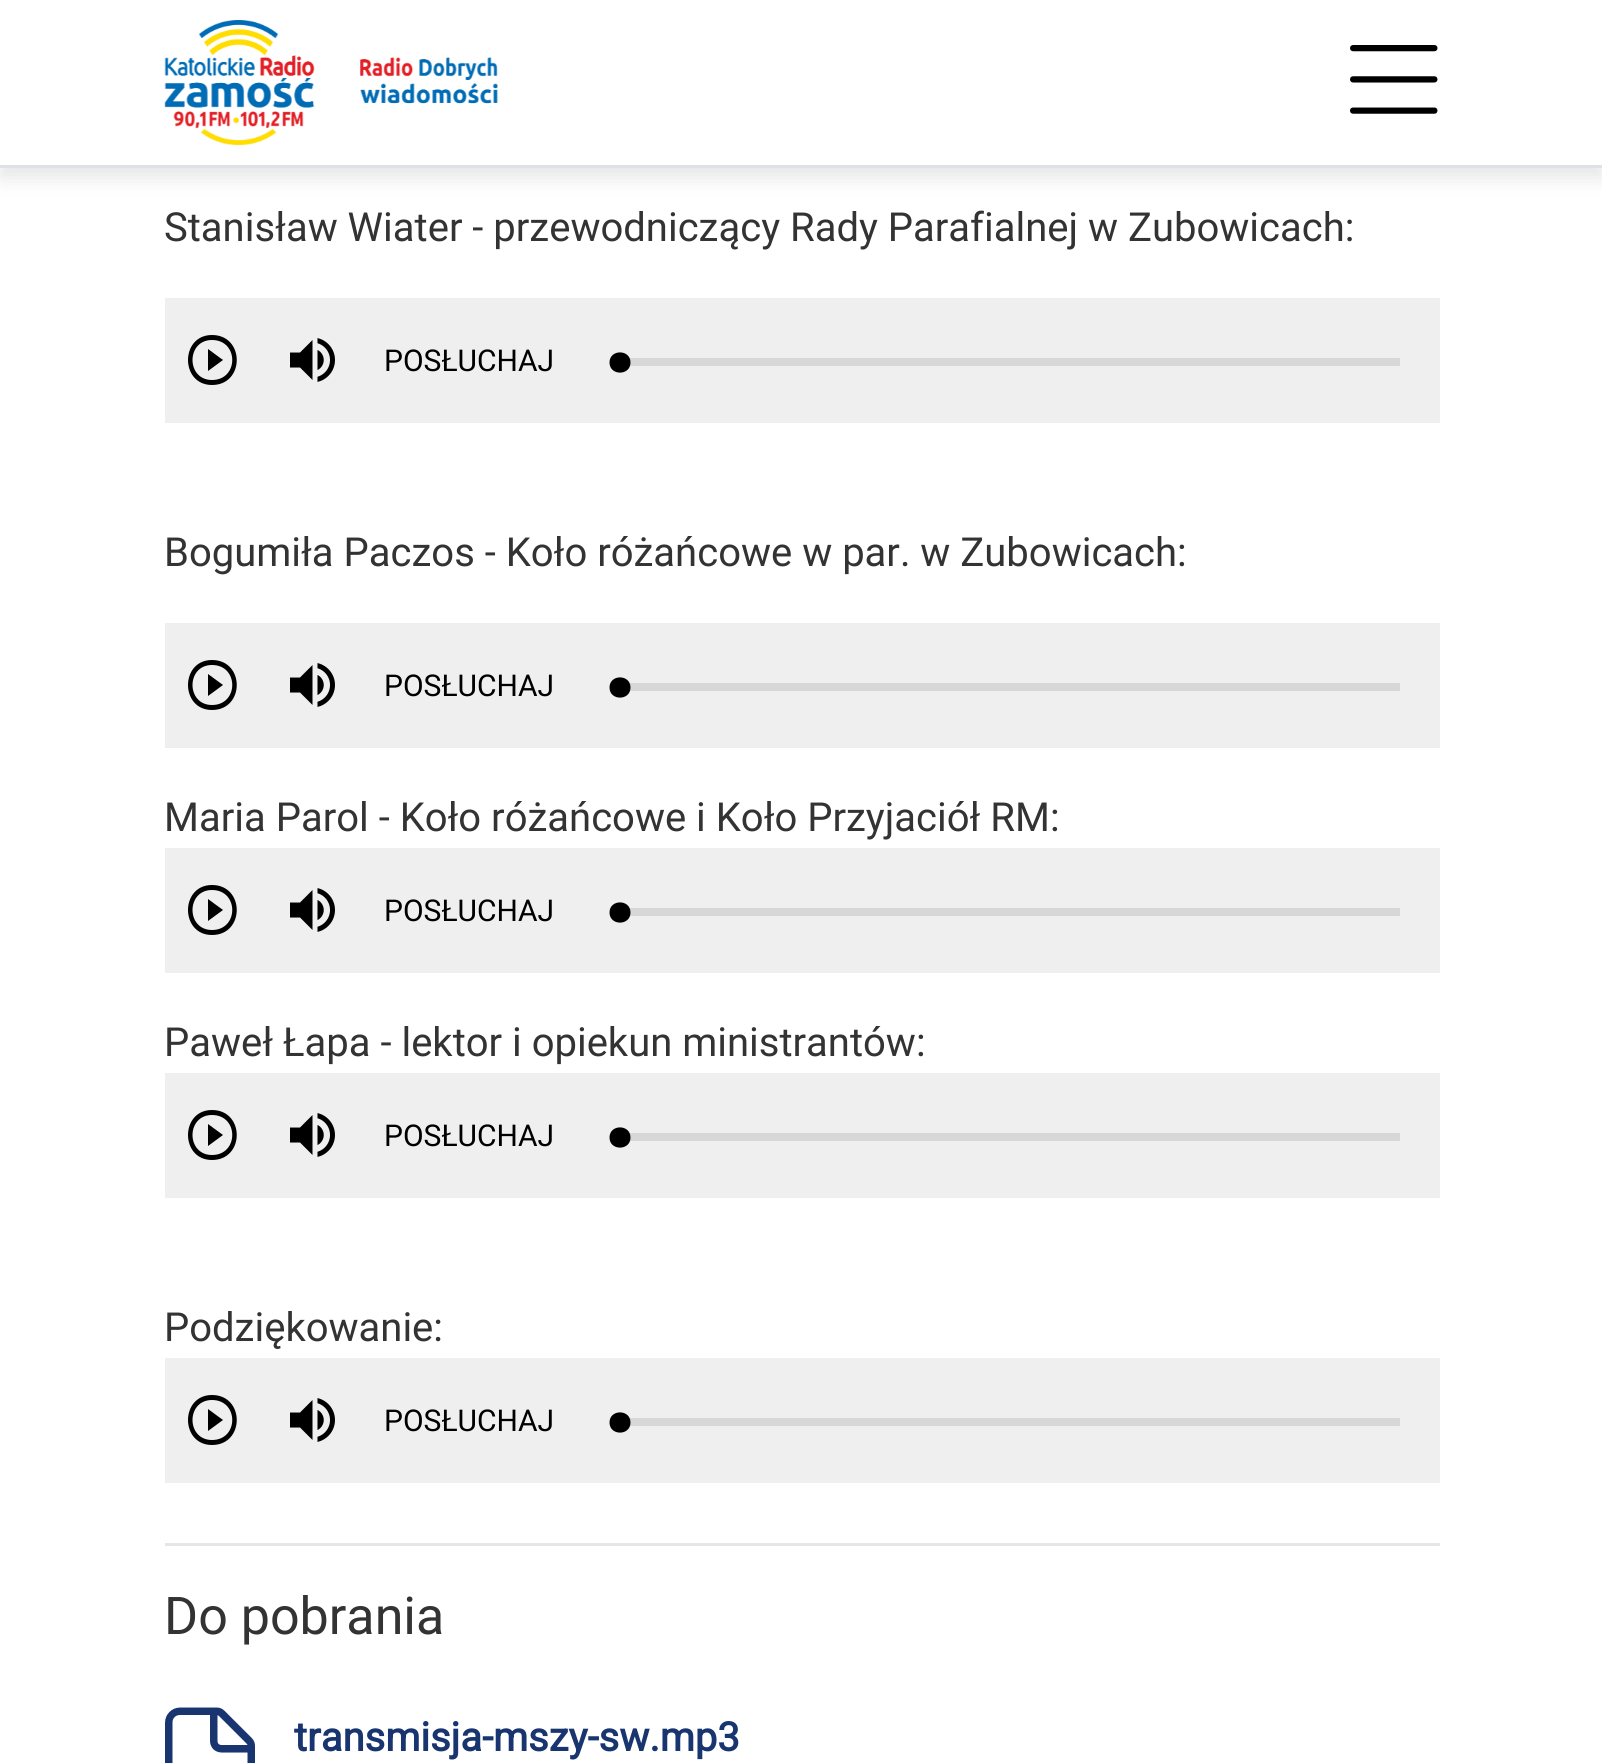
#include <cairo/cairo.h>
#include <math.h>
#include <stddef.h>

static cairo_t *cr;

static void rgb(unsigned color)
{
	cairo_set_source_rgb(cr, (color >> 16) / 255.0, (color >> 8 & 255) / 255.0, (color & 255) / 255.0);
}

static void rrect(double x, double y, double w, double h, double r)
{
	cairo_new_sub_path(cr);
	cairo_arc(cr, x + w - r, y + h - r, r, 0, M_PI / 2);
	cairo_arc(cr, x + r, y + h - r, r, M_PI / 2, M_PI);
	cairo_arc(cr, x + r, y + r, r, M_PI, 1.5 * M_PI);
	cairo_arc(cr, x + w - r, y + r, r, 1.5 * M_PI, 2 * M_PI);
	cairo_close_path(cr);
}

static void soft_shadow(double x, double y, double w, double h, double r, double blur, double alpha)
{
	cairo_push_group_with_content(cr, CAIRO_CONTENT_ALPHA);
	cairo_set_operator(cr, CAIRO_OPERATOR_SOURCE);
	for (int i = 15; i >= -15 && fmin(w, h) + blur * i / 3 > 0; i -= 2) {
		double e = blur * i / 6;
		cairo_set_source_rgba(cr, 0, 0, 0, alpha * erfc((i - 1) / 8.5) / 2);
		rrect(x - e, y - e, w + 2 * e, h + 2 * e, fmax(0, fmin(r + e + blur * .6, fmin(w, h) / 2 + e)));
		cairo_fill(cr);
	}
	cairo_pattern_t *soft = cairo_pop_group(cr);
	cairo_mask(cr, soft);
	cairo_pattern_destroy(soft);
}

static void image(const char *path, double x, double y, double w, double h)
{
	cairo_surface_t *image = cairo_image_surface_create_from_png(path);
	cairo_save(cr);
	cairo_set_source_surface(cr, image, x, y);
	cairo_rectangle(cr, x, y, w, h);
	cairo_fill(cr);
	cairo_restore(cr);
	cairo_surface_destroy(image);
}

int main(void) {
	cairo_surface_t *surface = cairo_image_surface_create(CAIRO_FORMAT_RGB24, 1602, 1763);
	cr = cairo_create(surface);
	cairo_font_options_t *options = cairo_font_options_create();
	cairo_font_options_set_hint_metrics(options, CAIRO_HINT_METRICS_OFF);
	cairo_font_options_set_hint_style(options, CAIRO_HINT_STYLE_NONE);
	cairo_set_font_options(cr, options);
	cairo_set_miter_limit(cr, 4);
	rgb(0xffffff);
	cairo_paint(cr);
	rgb(0x000000);
	soft_shadow(0, 10, 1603, 168, 0, 10, 0.1);
	rgb(0xffffff);
	cairo_rectangle(cr, 0, 0, 1602, 165);
	cairo_fill(cr);
	rgb(0xdee2e6);
	cairo_rectangle(cr, 0, 165, 1602, 3);
	cairo_fill(cr);
	image("img/1.png", 164, 20, 334, 125);
	image("img/2.png", 1350, 45, 88, 69);
	rgb(0xefefef);
	cairo_rectangle(cr, 165, 298, 1275, 125);
	cairo_fill(cr);
	rgb(0x000000);
	cairo_new_path(cr);
	cairo_move_to(cr, 208, 371);
	cairo_line_to(cr, 223, 360);
	cairo_line_to(cr, 208, 349);
	cairo_close_path(cr);
	cairo_move_to(cr, 212, 335);
	cairo_curve_to(cr, 180, 335, 180, 385, 212, 385);
	cairo_curve_to(cr, 245, 385, 245, 335, 212, 335);
	cairo_close_path(cr);
	cairo_move_to(cr, 212, 380);
	cairo_curve_to(cr, 186, 380, 186, 340, 212, 340);
	cairo_curve_to(cr, 239, 340, 239, 380, 212, 380);
	cairo_close_path(cr);
	cairo_fill(cr);
	image("img/3.png", 290, 338, 45, 44);
	rgb(0xd7d7d7);
	cairo_rectangle(cr, 629, 358, 771, 8);
	cairo_fill(cr);
	rgb(0x000000);
	cairo_new_path(cr);
	cairo_move_to(cr, 609.5, 362.5);
	cairo_curve_to(cr, 609.5, 376, 630.5, 376, 630.5, 362.5);
	cairo_curve_to(cr, 630.5, 349, 609.5, 349, 609.5, 362.5);
	cairo_close_path(cr);
	cairo_fill(cr);
	rgb(0xefefef);
	cairo_rectangle(cr, 165, 623, 1275, 125);
	cairo_fill(cr);
	rgb(0x000000);
	cairo_new_path(cr);
	cairo_move_to(cr, 208, 696);
	cairo_line_to(cr, 223, 685);
	cairo_line_to(cr, 208, 674);
	cairo_close_path(cr);
	cairo_move_to(cr, 212, 660);
	cairo_curve_to(cr, 180, 660, 180, 710, 212, 710);
	cairo_curve_to(cr, 245, 710, 245, 660, 212, 660);
	cairo_close_path(cr);
	cairo_move_to(cr, 212, 705);
	cairo_curve_to(cr, 186, 705, 186, 665, 212, 665);
	cairo_curve_to(cr, 239, 665, 239, 705, 212, 705);
	cairo_close_path(cr);
	cairo_fill(cr);
	image("img/3.png", 290, 663, 45, 44);
	rgb(0xd7d7d7);
	cairo_rectangle(cr, 629, 683, 771, 8);
	cairo_fill(cr);
	rgb(0x000000);
	cairo_new_path(cr);
	cairo_move_to(cr, 609.5, 687.5);
	cairo_curve_to(cr, 609.5, 701, 630.5, 701, 630.5, 687.5);
	cairo_curve_to(cr, 630.5, 674, 609.5, 674, 609.5, 687.5);
	cairo_close_path(cr);
	cairo_fill(cr);
	rgb(0xefefef);
	cairo_rectangle(cr, 165, 848, 1275, 125);
	cairo_fill(cr);
	rgb(0x000000);
	cairo_new_path(cr);
	cairo_move_to(cr, 208, 921);
	cairo_line_to(cr, 223, 910);
	cairo_line_to(cr, 208, 899);
	cairo_close_path(cr);
	cairo_move_to(cr, 212, 885);
	cairo_curve_to(cr, 180, 885, 180, 935, 212, 935);
	cairo_curve_to(cr, 245, 935, 245, 885, 212, 885);
	cairo_close_path(cr);
	cairo_move_to(cr, 212, 930);
	cairo_curve_to(cr, 186, 930, 186, 890, 212, 890);
	cairo_curve_to(cr, 239, 890, 239, 930, 212, 930);
	cairo_close_path(cr);
	cairo_fill(cr);
	image("img/3.png", 290, 888, 45, 44);
	rgb(0xd7d7d7);
	cairo_rectangle(cr, 629, 908, 771, 8);
	cairo_fill(cr);
	rgb(0x000000);
	cairo_new_path(cr);
	cairo_move_to(cr, 609.5, 912.5);
	cairo_curve_to(cr, 609.5, 926, 630.5, 926, 630.5, 912.5);
	cairo_curve_to(cr, 630.5, 899, 609.5, 899, 609.5, 912.5);
	cairo_close_path(cr);
	cairo_fill(cr);
	rgb(0xefefef);
	cairo_rectangle(cr, 165, 1073, 1275, 125);
	cairo_fill(cr);
	rgb(0x000000);
	cairo_new_path(cr);
	cairo_move_to(cr, 208, 1146);
	cairo_line_to(cr, 223, 1135);
	cairo_line_to(cr, 208, 1124);
	cairo_close_path(cr);
	cairo_move_to(cr, 212, 1110);
	cairo_curve_to(cr, 180, 1110, 180, 1160, 212, 1160);
	cairo_curve_to(cr, 245, 1160, 245, 1110, 212, 1110);
	cairo_close_path(cr);
	cairo_move_to(cr, 212, 1155);
	cairo_curve_to(cr, 186, 1155, 186, 1115, 212, 1115);
	cairo_curve_to(cr, 239, 1115, 239, 1155, 212, 1155);
	cairo_close_path(cr);
	cairo_fill(cr);
	image("img/3.png", 290, 1113, 45, 44);
	rgb(0xd7d7d7);
	cairo_rectangle(cr, 629, 1133, 771, 8);
	cairo_fill(cr);
	rgb(0x000000);
	cairo_new_path(cr);
	cairo_move_to(cr, 609.5, 1137.5);
	cairo_curve_to(cr, 609.5, 1151, 630.5, 1151, 630.5, 1137.5);
	cairo_curve_to(cr, 630.5, 1124, 609.5, 1124, 609.5, 1137.5);
	cairo_close_path(cr);
	cairo_fill(cr);
	rgb(0xefefef);
	cairo_rectangle(cr, 165, 1358, 1275, 125);
	cairo_fill(cr);
	rgb(0x000000);
	cairo_new_path(cr);
	cairo_move_to(cr, 208, 1431);
	cairo_line_to(cr, 223, 1420);
	cairo_line_to(cr, 208, 1409);
	cairo_close_path(cr);
	cairo_move_to(cr, 212, 1395);
	cairo_curve_to(cr, 180, 1395, 180, 1445, 212, 1445);
	cairo_curve_to(cr, 245, 1445, 245, 1395, 212, 1395);
	cairo_close_path(cr);
	cairo_move_to(cr, 212, 1440);
	cairo_curve_to(cr, 186, 1440, 186, 1400, 212, 1400);
	cairo_curve_to(cr, 239, 1400, 239, 1440, 212, 1440);
	cairo_close_path(cr);
	cairo_fill(cr);
	image("img/3.png", 290, 1398, 45, 44);
	rgb(0xd7d7d7);
	cairo_rectangle(cr, 629, 1418, 771, 8);
	cairo_fill(cr);
	rgb(0x000000);
	cairo_new_path(cr);
	cairo_move_to(cr, 609.5, 1422.5);
	cairo_curve_to(cr, 609.5, 1436, 630.5, 1436, 630.5, 1422.5);
	cairo_curve_to(cr, 630.5, 1409, 609.5, 1409, 609.5, 1422.5);
	cairo_close_path(cr);
	cairo_fill(cr);
	rgb(0xe6e6e6);
	cairo_rectangle(cr, 165, 1543, 1275, 3);
	cairo_fill(cr);
	image("img/4.png", 165, 1707, 90, 56);
	cairo_select_font_face(cr, "Roboto", CAIRO_FONT_SLANT_NORMAL, CAIRO_FONT_WEIGHT_NORMAL);
	cairo_set_font_size(cr, 40);
	rgb(0x333333);
	cairo_move_to(cr, 164, 241);
	cairo_show_text(cr, "Stanisław Wiater - przewodniczący Rady Parafialnej w Zubowicach:");
	cairo_set_font_size(cr, 30);
	rgb(0x000000);
	cairo_move_to(cr, 384, 371);
	cairo_show_text(cr, "POSŁUCHAJ");
	cairo_set_font_size(cr, 40);
	rgb(0x333333);
	cairo_move_to(cr, 164, 566);
	cairo_show_text(cr, "Bogumiła Paczos - Koło różańcowe w par. w Zubowicach:");
	cairo_set_font_size(cr, 30);
	rgb(0x000000);
	cairo_move_to(cr, 384, 696);
	cairo_show_text(cr, "POSŁUCHAJ");
	cairo_set_font_size(cr, 40);
	rgb(0x333333);
	cairo_move_to(cr, 164, 831);
	cairo_show_text(cr, "Maria Parol - Koło różańcowe i Koło Przyjaciół RM:");
	cairo_set_font_size(cr, 30);
	rgb(0x000000);
	cairo_move_to(cr, 384, 921);
	cairo_show_text(cr, "POSŁUCHAJ");
	cairo_set_font_size(cr, 40);
	rgb(0x333333);
	cairo_move_to(cr, 164, 1056);
	cairo_show_text(cr, "Paweł Łapa - lektor i opiekun ministrantów:");
	cairo_set_font_size(cr, 30);
	rgb(0x000000);
	cairo_move_to(cr, 384, 1146);
	cairo_show_text(cr, "POSŁUCHAJ");
	cairo_set_font_size(cr, 40);
	rgb(0x333333);
	cairo_move_to(cr, 164, 1341);
	cairo_show_text(cr, "Podziękowanie:");
	cairo_set_font_size(cr, 30);
	rgb(0x000000);
	cairo_move_to(cr, 384, 1431);
	cairo_show_text(cr, "POSŁUCHAJ");
	cairo_set_font_size(cr, 52);
	rgb(0x333333);
	cairo_move_to(cr, 164, 1634);
	cairo_show_text(cr, "Do pobrania");
	cairo_select_font_face(cr, "Roboto", CAIRO_FONT_SLANT_NORMAL, CAIRO_FONT_WEIGHT_BOLD);
	cairo_set_font_size(cr, 40);
	rgb(0x193570);
	cairo_move_to(cr, 294, 1751);
	cairo_show_text(cr, "transmisja-mszy-sw.mp3");
	cairo_surface_write_to_png(surface, "page.png");
	cairo_font_options_destroy(options);
	cairo_destroy(cr);
	cairo_surface_destroy(surface);
	return 0;
}
